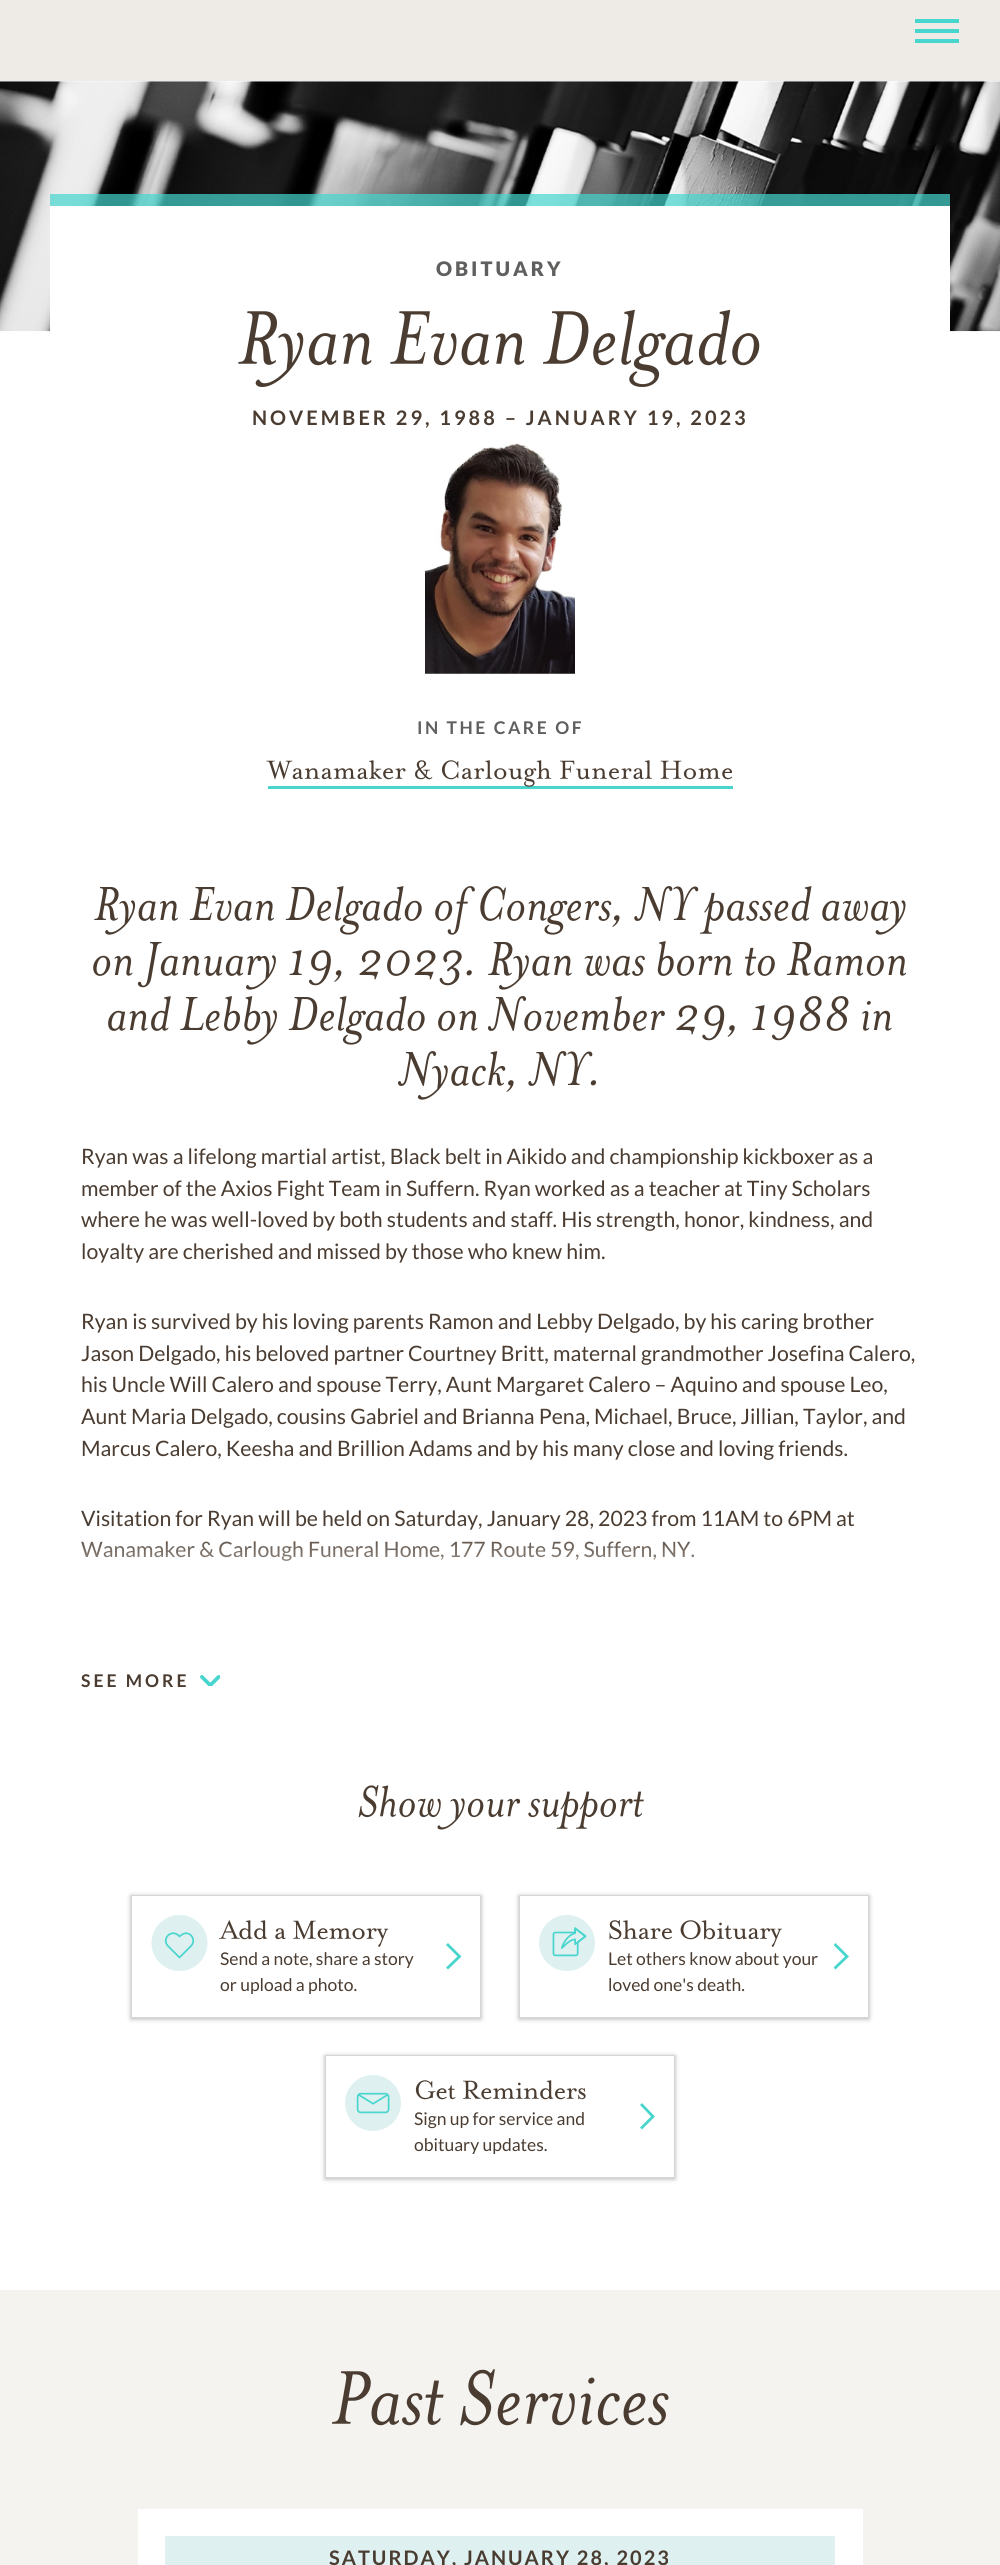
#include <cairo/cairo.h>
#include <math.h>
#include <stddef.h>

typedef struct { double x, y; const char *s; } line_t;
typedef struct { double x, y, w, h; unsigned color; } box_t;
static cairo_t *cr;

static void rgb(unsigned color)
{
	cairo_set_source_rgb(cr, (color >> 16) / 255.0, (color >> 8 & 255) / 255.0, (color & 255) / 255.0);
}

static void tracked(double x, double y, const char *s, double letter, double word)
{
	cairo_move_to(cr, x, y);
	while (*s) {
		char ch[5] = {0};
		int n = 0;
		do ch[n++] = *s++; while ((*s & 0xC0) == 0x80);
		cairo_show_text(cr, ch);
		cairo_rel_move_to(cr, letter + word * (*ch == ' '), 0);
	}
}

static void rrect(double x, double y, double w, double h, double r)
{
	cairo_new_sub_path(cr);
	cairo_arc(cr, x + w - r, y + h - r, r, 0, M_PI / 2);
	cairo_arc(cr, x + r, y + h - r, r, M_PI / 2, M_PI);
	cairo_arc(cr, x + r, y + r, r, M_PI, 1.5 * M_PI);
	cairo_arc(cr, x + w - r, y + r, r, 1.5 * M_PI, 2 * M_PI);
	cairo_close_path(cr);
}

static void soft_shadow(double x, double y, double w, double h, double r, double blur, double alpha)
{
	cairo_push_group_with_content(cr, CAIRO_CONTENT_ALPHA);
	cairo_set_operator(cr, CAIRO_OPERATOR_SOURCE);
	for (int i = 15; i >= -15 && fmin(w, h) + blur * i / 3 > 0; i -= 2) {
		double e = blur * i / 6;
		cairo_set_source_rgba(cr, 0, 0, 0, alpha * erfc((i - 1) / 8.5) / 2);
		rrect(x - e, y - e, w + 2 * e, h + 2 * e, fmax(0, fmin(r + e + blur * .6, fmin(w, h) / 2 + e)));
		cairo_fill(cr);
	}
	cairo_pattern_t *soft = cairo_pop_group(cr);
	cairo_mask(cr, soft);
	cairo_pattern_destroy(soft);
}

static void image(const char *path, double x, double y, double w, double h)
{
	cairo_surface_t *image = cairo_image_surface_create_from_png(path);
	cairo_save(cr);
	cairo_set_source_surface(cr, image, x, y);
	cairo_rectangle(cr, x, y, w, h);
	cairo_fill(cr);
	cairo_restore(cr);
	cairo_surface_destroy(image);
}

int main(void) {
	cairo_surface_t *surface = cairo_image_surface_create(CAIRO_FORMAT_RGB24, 1000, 2565);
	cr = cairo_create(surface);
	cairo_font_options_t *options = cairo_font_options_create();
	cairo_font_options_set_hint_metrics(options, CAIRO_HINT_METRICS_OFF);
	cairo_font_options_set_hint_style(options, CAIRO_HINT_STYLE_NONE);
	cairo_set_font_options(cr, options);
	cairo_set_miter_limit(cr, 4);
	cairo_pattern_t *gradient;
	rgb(0xffffff);
	cairo_paint(cr);
	{
		static const box_t items[] = {
			{0, 0, 1000, 81, 0xeeebe6},
			{915, 19, 44, 4, 0x47d5cd},
			{915, 29, 44, 4, 0x47d5cd},
			{915, 39, 44, 4, 0x47d5cd},
		};
		for (size_t i = 0; i < sizeof items / sizeof *items; i++) {
			rgb(items[i].color);
			cairo_rectangle(cr, items[i].x, items[i].y, items[i].w, items[i].h);
			cairo_fill(cr);
		}
	}
	image("img/1.png", 0, 81, 1000, 251);
	rgb(0xffffff);
	cairo_rectangle(cr, 50, 206, 900, 126);
	cairo_fill(cr);
	cairo_set_source_rgba(cr, 0.278, 0.835, 0.804, 0.7);
	cairo_rectangle(cr, 50, 194, 900, 12);
	cairo_fill(cr);
	image("img/2.png", 238, 309, 522, 78);
	image("img/3.png", 425, 443, 150, 231);
	rgb(0x47d5cd);
	cairo_rectangle(cr, 268, 786, 465, 3);
	cairo_fill(cr);
	image("img/4.png", 266, 760, 467, 27);
	image("img/5.png", 94, 886, 812, 49);
	image("img/6.png", 93, 941, 813, 49);
	image("img/7.png", 108, 996, 784, 49);
	image("img/8.png", 398, 1051, 199, 49);
	image("img/9.png", 200, 1675, 20, 11);
	image("img/10.png", 358, 1785, 286, 45);
	cairo_save(cr);
	cairo_set_fill_rule(cr, CAIRO_FILL_RULE_EVEN_ODD);
	cairo_new_path(cr);
	cairo_move_to(cr, 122, 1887);
	cairo_line_to(cr, 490, 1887);
	cairo_line_to(cr, 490, 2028);
	cairo_line_to(cr, 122, 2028);
	cairo_close_path(cr);
	cairo_move_to(cr, 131, 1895);
	cairo_line_to(cr, 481, 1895);
	cairo_line_to(cr, 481, 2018);
	cairo_line_to(cr, 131, 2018);
	cairo_close_path(cr);
	cairo_clip(cr);
	rgb(0x000000);
	soft_shadow(131, 1896, 350, 123, 0, 2.5, 0.29);
	cairo_restore(cr);
	cairo_rectangle(cr, 131.5, 1895.5, 349, 122);
	rgb(0xd6d6d6);
	cairo_set_line_width(cr, 1);
	cairo_stroke(cr);
	rgb(0xdef0f0);
	cairo_arc(cr, 179.5, 1943, 28, 0, 2 * M_PI);
	cairo_fill(cr);
	cairo_new_path(cr);
	cairo_move_to(cr, 179.5, 1957.5);
	cairo_line_to(cr, 168, 1946);
	cairo_curve_to(cr, 165, 1943, 165, 1938.5, 168, 1935.5);
	cairo_curve_to(cr, 171, 1932.5, 175.5, 1932.5, 178.5, 1935.5);
	cairo_line_to(cr, 179.5, 1936.5);
	cairo_curve_to(cr, 188.5, 1927.5, 197.5, 1939.5, 191, 1946);
	cairo_close_path(cr);
	rgb(0x47d5cd);
	cairo_set_line_width(cr, 1.7);
	cairo_set_line_cap(cr, CAIRO_LINE_CAP_ROUND);
	cairo_set_line_join(cr, CAIRO_LINE_JOIN_ROUND);
	cairo_stroke(cr);
	image("img/11.png", 218, 1920, 171, 27);
	cairo_new_path(cr);
	cairo_move_to(cr, 447, 1944);
	cairo_line_to(cr, 459.5, 1956.5);
	cairo_line_to(cr, 447, 1968.5);
	cairo_set_line_width(cr, 2.8);
	cairo_set_line_cap(cr, CAIRO_LINE_CAP_BUTT);
	cairo_set_line_join(cr, CAIRO_LINE_JOIN_MITER);
	cairo_stroke(cr);
	cairo_save(cr);
	cairo_set_fill_rule(cr, CAIRO_FILL_RULE_EVEN_ODD);
	cairo_new_path(cr);
	cairo_move_to(cr, 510, 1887);
	cairo_line_to(cr, 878, 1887);
	cairo_line_to(cr, 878, 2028);
	cairo_line_to(cr, 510, 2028);
	cairo_close_path(cr);
	cairo_move_to(cr, 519, 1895);
	cairo_line_to(cr, 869, 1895);
	cairo_line_to(cr, 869, 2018);
	cairo_line_to(cr, 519, 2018);
	cairo_close_path(cr);
	cairo_clip(cr);
	rgb(0x000000);
	soft_shadow(519, 1896, 350, 123, 0, 2.5, 0.29);
	cairo_restore(cr);
	cairo_rectangle(cr, 519.5, 1895.5, 349, 122);
	rgb(0xd6d6d6);
	cairo_set_line_width(cr, 1);
	cairo_stroke(cr);
	image("img/12.png", 539, 1915, 56, 56);
	image("img/13.png", 609, 1920, 173, 27);
	cairo_save(cr);
	cairo_rectangle(cr, 834, 1939, 15, 35);
	cairo_clip(cr);
	cairo_new_path(cr);
	cairo_move_to(cr, 834.5, 1944);
	cairo_line_to(cr, 847, 1956.5);
	cairo_line_to(cr, 834.5, 1968.5);
	rgb(0x47d5cd);
	cairo_set_line_width(cr, 2.8);
	cairo_stroke(cr);
	cairo_restore(cr);
	cairo_save(cr);
	cairo_set_fill_rule(cr, CAIRO_FILL_RULE_EVEN_ODD);
	cairo_new_path(cr);
	cairo_move_to(cr, 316, 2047);
	cairo_line_to(cr, 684, 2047);
	cairo_line_to(cr, 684, 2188);
	cairo_line_to(cr, 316, 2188);
	cairo_close_path(cr);
	cairo_move_to(cr, 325, 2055);
	cairo_line_to(cr, 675, 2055);
	cairo_line_to(cr, 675, 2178);
	cairo_line_to(cr, 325, 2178);
	cairo_close_path(cr);
	cairo_clip(cr);
	rgb(0x000000);
	soft_shadow(325, 2056, 350, 123, 0, 2.5, 0.29);
	cairo_restore(cr);
	cairo_rectangle(cr, 325.5, 2055.5, 349, 122);
	cairo_stroke(cr);
	image("img/14.png", 345, 2075, 56, 56);
	image("img/15.png", 415, 2080, 171, 20);
	cairo_new_path(cr);
	cairo_move_to(cr, 641, 2104);
	cairo_line_to(cr, 653, 2116.5);
	cairo_line_to(cr, 641, 2128.5);
	rgb(0x47d5cd);
	cairo_set_line_width(cr, 2.8);
	cairo_stroke(cr);
	rgb(0xf4f3f0);
	cairo_rectangle(cr, 0, 2290, 1000, 275);
	cairo_fill(cr);
	image("img/16.png", 332, 2369, 337, 57);
	rgb(0xffffff);
	cairo_rectangle(cr, 138, 2509, 725, 56);
	cairo_fill(cr);
	rgb(0xdef0f0);
	cairo_rectangle(cr, 165, 2536, 670, 29);
	cairo_fill(cr);
	cairo_select_font_face(cr, "Lato Black", CAIRO_FONT_SLANT_NORMAL, CAIRO_FONT_WEIGHT_NORMAL);
	cairo_set_font_size(cr, 20);
	rgb(0x605f5e);
	tracked(436, 276, "OBITUARY", 3, 0);
	cairo_select_font_face(cr, "Lato", CAIRO_FONT_SLANT_NORMAL, CAIRO_FONT_WEIGHT_BOLD);
	rgb(0x4a3c31);
	tracked(252, 425, "NOVEMBER 29, 1988 – JANUARY 19, 2023", 3, 0);
	cairo_set_font_size(cr, 17.5);
	rgb(0x605f5e);
	tracked(417, 734, "IN THE CARE OF", 2.5, 0);
	cairo_select_font_face(cr, "Lato", CAIRO_FONT_SLANT_NORMAL, CAIRO_FONT_WEIGHT_NORMAL);
	cairo_set_font_size(cr, 21.25);
	rgb(0x4a3c31);
	{
		static const line_t items[] = {
			{81, 1164, "Ryan was a lifelong martial artist, Black belt in Aikido and championship kickboxer as a"},
			{81, 1196, "member of the Axios Fight Team in Suffern. Ryan worked as a teacher at Tiny Scholars"},
			{81, 1227, "where he was well-loved by both students and staff. His strength, honor, kindness, and"},
			{81, 1259, "loyalty are cherished and missed by those who knew him."},
			{81, 1329, "Ryan is survived by his loving parents Ramon and Lebby Delgado, by his caring brother"},
			{81, 1361, "Jason Delgado, his beloved partner Courtney Britt, maternal grandmother Josefina Calero,"},
			{81, 1392, "his Uncle Will Calero and spouse Terry, Aunt Margaret Calero – Aquino and spouse Leo,"},
			{81, 1424, "Aunt Maria Delgado, cousins Gabriel and Brianna Pena, Michael, Bruce, Jillian, Taylor, and"},
			{81, 1456, "Marcus Calero, Keesha and Brillion Adams and by his many close and loving friends."},
			{81, 1526, "Visitation for Ryan will be held on Saturday, January 28, 2023 from 11AM to 6PM at"},
			{81, 1557, "Wanamaker & Carlough Funeral Home, 177 Route 59, Suffern, NY."},
		};
		for (size_t i = 0; i < sizeof items / sizeof *items; i++) {
			cairo_move_to(cr, items[i].x, items[i].y);
			cairo_show_text(cr, items[i].s);
		}
	}
	gradient = cairo_pattern_create_linear(500, 1528, 500, 1708);
	cairo_pattern_add_color_stop_rgba(gradient, 0, 1, 1, 1, 0);
	cairo_pattern_add_color_stop_rgba(gradient, 0.5, 1, 1, 1, 1);
	cairo_pattern_add_color_stop_rgba(gradient, 1, 1, 1, 1, 1);
	cairo_set_source(cr, gradient);
	cairo_pattern_destroy(gradient);
	cairo_rectangle(cr, 81, 1541, 614, 20);
	cairo_fill(cr);
	cairo_select_font_face(cr, "Lato", CAIRO_FONT_SLANT_NORMAL, CAIRO_FONT_WEIGHT_BOLD);
	cairo_set_font_size(cr, 17.5);
	rgb(0x4a3c31);
	tracked(81, 1687, "SEE MORE", 3, 0);
	cairo_select_font_face(cr, "Lato", CAIRO_FONT_SLANT_NORMAL, CAIRO_FONT_WEIGHT_NORMAL);
	{
		static const line_t items[] = {
			{220, 1965, "Send a note, share a story"},
			{220, 1991, "or upload a photo."},
			{608, 1965, "Let others know about your"},
			{608, 1991, "loved one's death."},
			{414, 2125, "Sign up for service and"},
			{414, 2151, "obituary updates."},
		};
		for (size_t i = 0; i < sizeof items / sizeof *items; i++) {
			cairo_move_to(cr, items[i].x, items[i].y);
			cairo_show_text(cr, items[i].s);
		}
	}
	cairo_select_font_face(cr, "Lato", CAIRO_FONT_SLANT_NORMAL, CAIRO_FONT_WEIGHT_BOLD);
	cairo_set_font_size(cr, 20);
	tracked(329, 2565, "SATURDAY,", 2, 0);
	tracked(464, 2565, "JANUARY 28, 2023", 2, 0);
	cairo_surface_write_to_png(surface, "page.png");
	cairo_font_options_destroy(options);
	cairo_destroy(cr);
	cairo_surface_destroy(surface);
	return 0;
}
